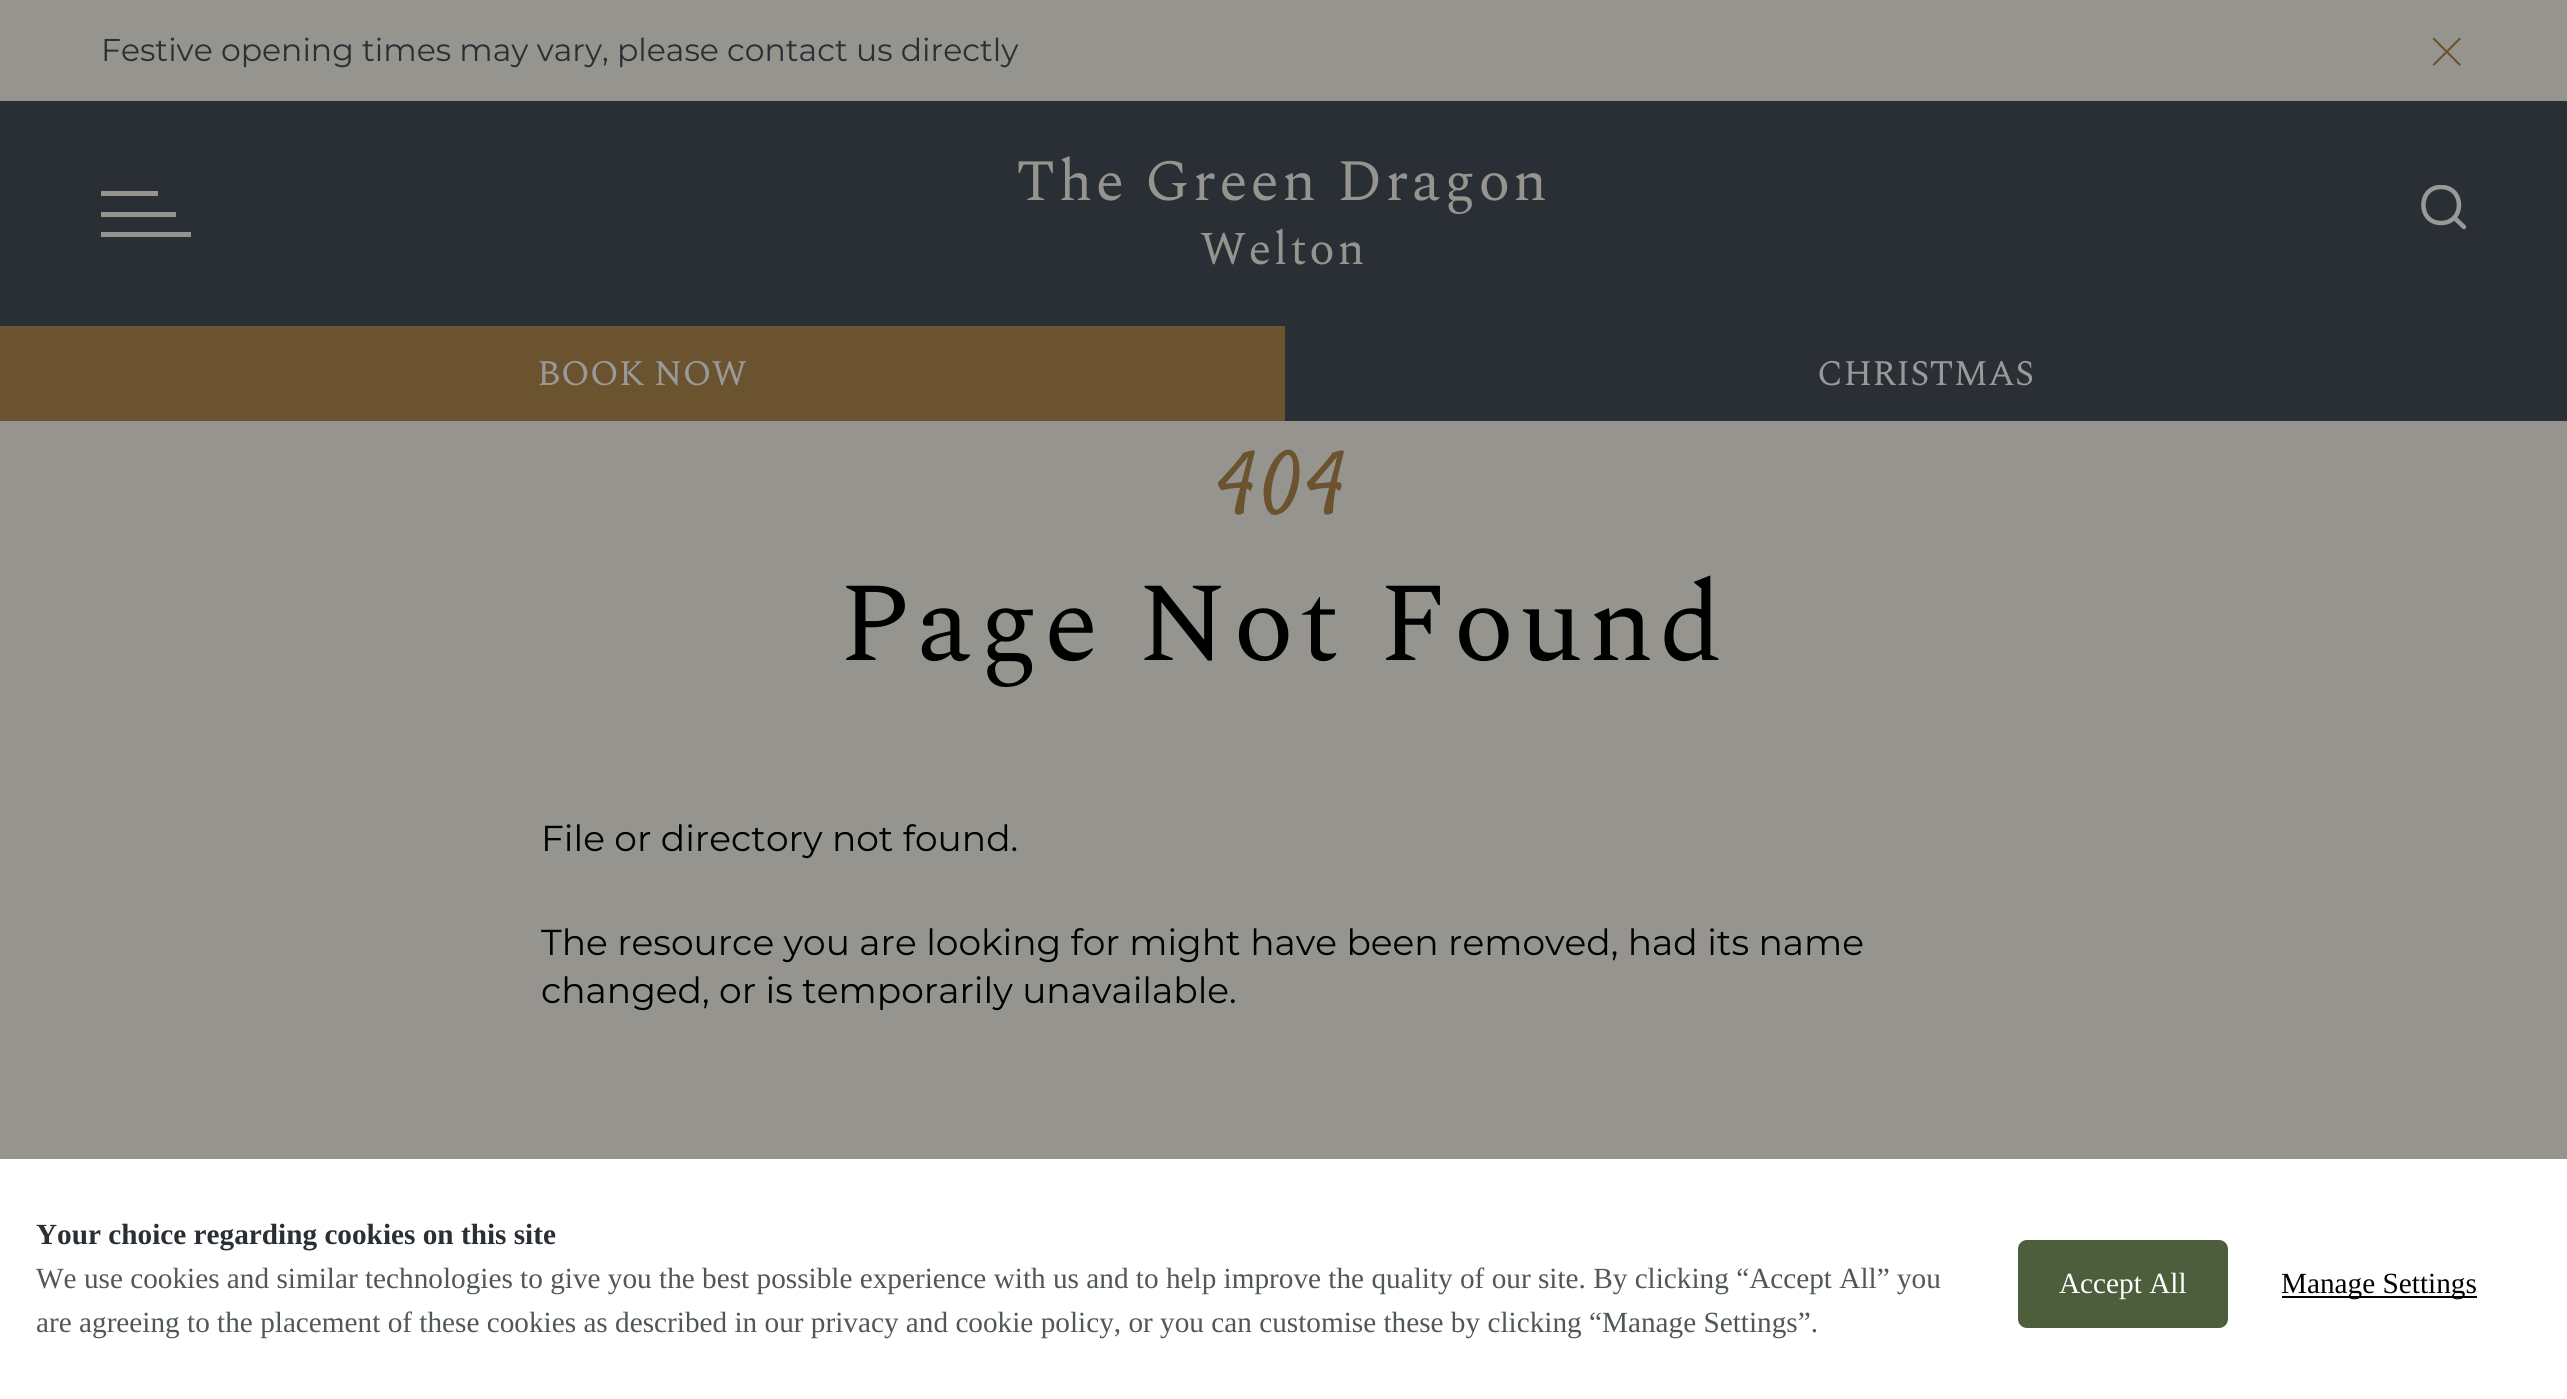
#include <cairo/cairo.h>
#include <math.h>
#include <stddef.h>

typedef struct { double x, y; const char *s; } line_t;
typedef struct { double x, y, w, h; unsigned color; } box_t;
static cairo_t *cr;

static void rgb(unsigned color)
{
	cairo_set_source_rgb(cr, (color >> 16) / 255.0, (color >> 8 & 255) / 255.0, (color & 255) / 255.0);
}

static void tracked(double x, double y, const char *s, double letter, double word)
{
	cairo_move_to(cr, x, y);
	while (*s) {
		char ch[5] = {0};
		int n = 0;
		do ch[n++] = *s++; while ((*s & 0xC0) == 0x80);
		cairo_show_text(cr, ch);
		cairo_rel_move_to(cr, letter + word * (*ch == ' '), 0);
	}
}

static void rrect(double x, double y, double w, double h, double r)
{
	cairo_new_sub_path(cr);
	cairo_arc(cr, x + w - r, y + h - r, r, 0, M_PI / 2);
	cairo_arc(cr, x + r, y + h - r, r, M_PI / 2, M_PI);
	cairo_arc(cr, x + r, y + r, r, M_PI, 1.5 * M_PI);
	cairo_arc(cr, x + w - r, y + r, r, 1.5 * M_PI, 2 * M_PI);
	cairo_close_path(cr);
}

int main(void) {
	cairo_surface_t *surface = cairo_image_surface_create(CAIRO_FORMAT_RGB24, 2567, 1399);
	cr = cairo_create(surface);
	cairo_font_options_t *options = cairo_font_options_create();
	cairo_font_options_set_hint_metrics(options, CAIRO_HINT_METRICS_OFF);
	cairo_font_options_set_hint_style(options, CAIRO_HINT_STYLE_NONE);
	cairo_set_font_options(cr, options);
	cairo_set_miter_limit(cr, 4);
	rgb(0x95948e);
	cairo_paint(cr);
	rgb(0x6b532f);
	cairo_new_path(cr);
	cairo_move_to(cr, 2461, 39);
	cairo_line_to(cr, 2434, 66);
	cairo_line_to(cr, 2432.5, 64.5);
	cairo_line_to(cr, 2459.5, 37.5);
	cairo_close_path(cr);
	cairo_fill(cr);
	cairo_new_path(cr);
	cairo_move_to(cr, 2459.5, 66);
	cairo_line_to(cr, 2432.5, 39);
	cairo_line_to(cr, 2434, 37.5);
	cairo_line_to(cr, 2461, 64.5);
	cairo_close_path(cr);
	cairo_fill(cr);
	{
		static const box_t items[] = {
			{0, 101, 2567, 225, 0x292f34},
			{101, 212, 75, 5, 0x95948e},
			{101, 191, 57, 5, 0x95948e},
			{101, 232, 90, 5, 0x95948e},
		};
		for (size_t i = 0; i < sizeof items / sizeof *items; i++) {
			rgb(items[i].color);
			cairo_rectangle(cr, items[i].x, items[i].y, items[i].w, items[i].h);
			cairo_fill(cr);
		}
	}
	cairo_save(cr);
	cairo_rectangle(cr, 2421, 185, 45, 45);
	cairo_clip(cr);
	cairo_new_path(cr);
	cairo_move_to(cr, 2441, 223);
	cairo_curve_to(cr, 2465, 223, 2465, 187, 2441, 187);
	cairo_curve_to(cr, 2417.5, 187, 2417.5, 223, 2441, 223);
	cairo_close_path(cr);
	cairo_move_to(cr, 2464, 227);
	cairo_line_to(cr, 2454, 217.5);
	rgb(0x999999);
	cairo_set_line_width(cr, 4.5);
	cairo_set_line_cap(cr, CAIRO_LINE_CAP_ROUND);
	cairo_set_line_join(cr, CAIRO_LINE_JOIN_ROUND);
	cairo_stroke(cr);
	cairo_restore(cr);
	{
		static const box_t items[] = {
			{0, 326, 1285, 95, 0x6b532f},
			{1285, 326, 1282, 95, 0x292f34},
			{0, 1159, 2567, 240, 0xffffff},
		};
		for (size_t i = 0; i < sizeof items / sizeof *items; i++) {
			rgb(items[i].color);
			cairo_rectangle(cr, items[i].x, items[i].y, items[i].w, items[i].h);
			cairo_fill(cr);
		}
	}
	rgb(0x4d5e3c);
	rrect(2020.5, 1242.5, 205, 83, 6.5);
	cairo_fill_preserve(cr);
	cairo_set_line_width(cr, 5);
	cairo_stroke(cr);
	rgb(0x000000);
	cairo_rectangle(cr, 2282, 1296, 195, 2);
	cairo_fill(cr);
	cairo_select_font_face(cr, "Montserrat", CAIRO_FONT_SLANT_NORMAL, CAIRO_FONT_WEIGHT_NORMAL);
	cairo_set_font_size(cr, 31.5);
	rgb(0x292f34);
	cairo_move_to(cr, 101, 61);
	cairo_show_text(cr, "Festive opening times may vary, please contact us directly");
	cairo_select_font_face(cr, "Spectral", CAIRO_FONT_SLANT_NORMAL, CAIRO_FONT_WEIGHT_NORMAL);
	cairo_set_font_size(cr, 58.5);
	rgb(0x95948e);
	tracked(1016, 200, "The Green Dragon", 3.1, 0);
	cairo_set_font_size(cr, 47);
	tracked(1200, 264, "Welton", 2.5, 0);
	cairo_set_font_size(cr, 36);
	rgb(0x999999);
	cairo_move_to(cr, 537, 385);
	cairo_show_text(cr, "BOOK NOW");
	cairo_move_to(cr, 1817, 385);
	cairo_show_text(cr, "CHRISTMAS");
	cairo_select_font_face(cr, "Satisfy", CAIRO_FONT_SLANT_NORMAL, CAIRO_FONT_WEIGHT_NORMAL);
	cairo_set_font_size(cr, 86);
	rgb(0x6b532f);
	tracked(1218, 513, "404", 4, 0);
	cairo_select_font_face(cr, "Spectral", CAIRO_FONT_SLANT_NORMAL, CAIRO_FONT_WEIGHT_NORMAL);
	cairo_set_font_size(cr, 112.5);
	rgb(0x000000);
	tracked(839, 660, "Page Not Found", 5.6, 0);
	cairo_select_font_face(cr, "Montserrat", CAIRO_FONT_SLANT_NORMAL, CAIRO_FONT_WEIGHT_NORMAL);
	cairo_set_font_size(cr, 36);
	{
		static const line_t items[] = {
			{541, 851, "File or directory not found."},
			{541, 955, "The resource you are looking for might have been removed, had its name"},
			{541, 1003, "changed, or is temporarily unavailable."},
		};
		for (size_t i = 0; i < sizeof items / sizeof *items; i++) {
			cairo_move_to(cr, items[i].x, items[i].y);
			cairo_show_text(cr, items[i].s);
		}
	}
	cairo_select_font_face(cr, "Liberation Serif", CAIRO_FONT_SLANT_NORMAL, CAIRO_FONT_WEIGHT_BOLD);
	cairo_set_font_size(cr, 29.25);
	rgb(0x292f34);
	cairo_move_to(cr, 36, 1244);
	cairo_show_text(cr, "Your choice regarding cookies on this site");
	cairo_select_font_face(cr, "Liberation Serif", CAIRO_FONT_SLANT_NORMAL, CAIRO_FONT_WEIGHT_NORMAL);
	rgb(0x50575a);
	cairo_move_to(cr, 36, 1288);
	cairo_show_text(cr, "We use cookies and similar technologies to give you the best possible experience with us and to help improve the quality of our site. By clicking “Accept All” you");
	cairo_move_to(cr, 36, 1332);
	cairo_show_text(cr, "are agreeing to the placement of these cookies as described in our privacy and cookie policy, or you can customise these by clicking “Manage Settings”.");
	rgb(0xffffff);
	cairo_move_to(cr, 2059, 1293);
	cairo_show_text(cr, "Accept All");
	rgb(0x000000);
	cairo_move_to(cr, 2281, 1293);
	cairo_show_text(cr, "Manage Settings");
	cairo_surface_write_to_png(surface, "page.png");
	cairo_font_options_destroy(options);
	cairo_destroy(cr);
	cairo_surface_destroy(surface);
	return 0;
}
